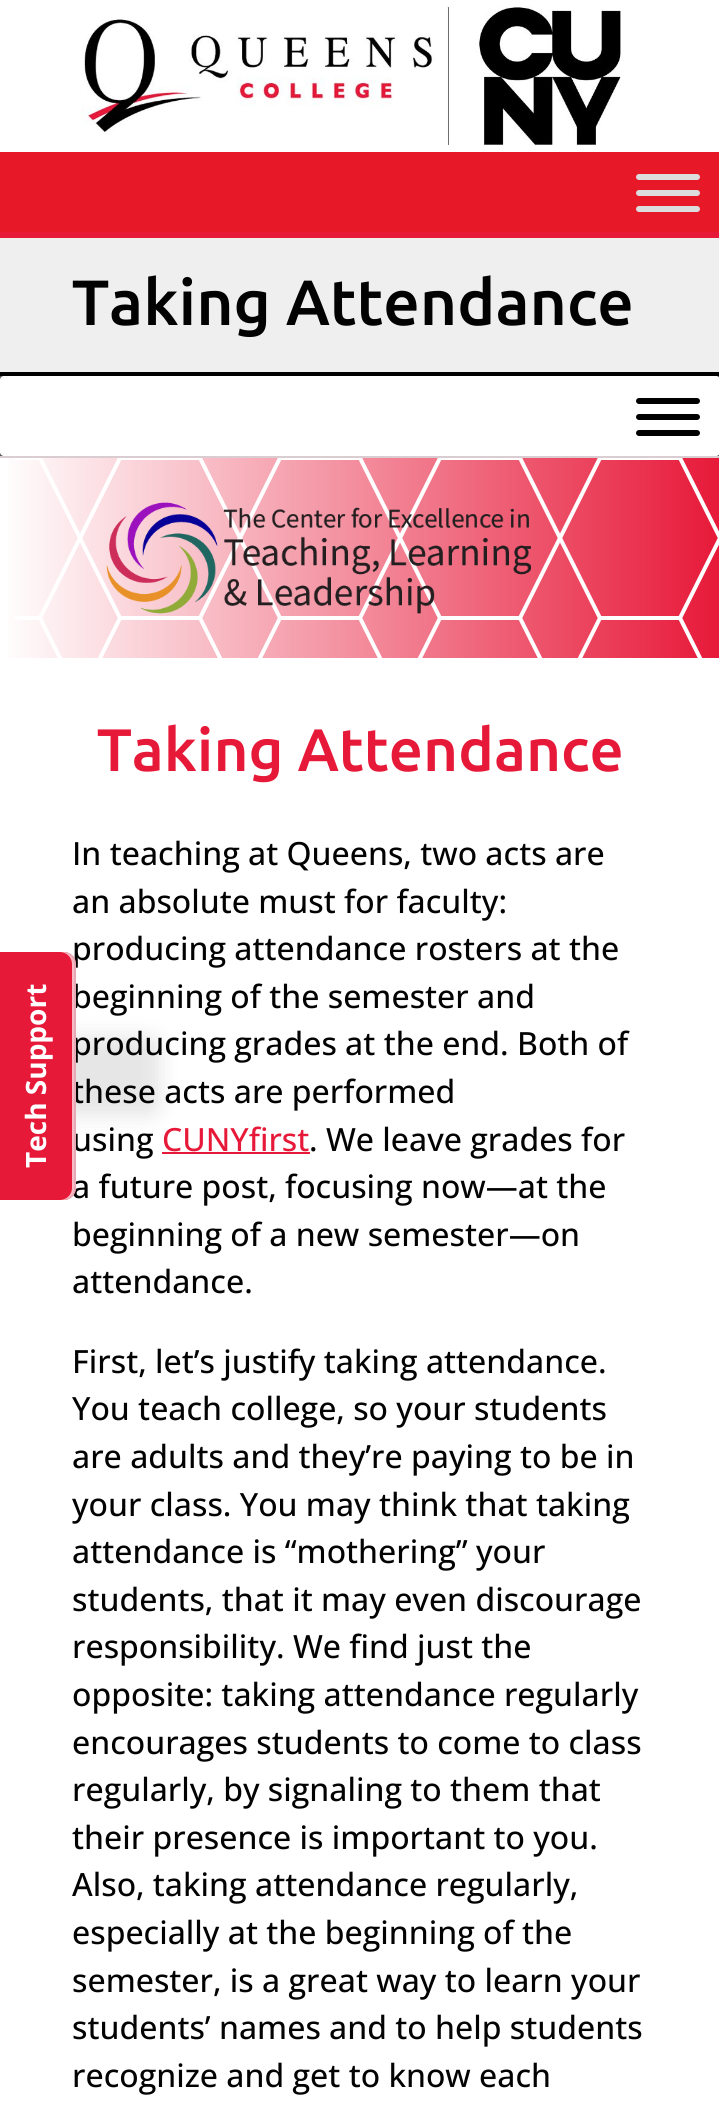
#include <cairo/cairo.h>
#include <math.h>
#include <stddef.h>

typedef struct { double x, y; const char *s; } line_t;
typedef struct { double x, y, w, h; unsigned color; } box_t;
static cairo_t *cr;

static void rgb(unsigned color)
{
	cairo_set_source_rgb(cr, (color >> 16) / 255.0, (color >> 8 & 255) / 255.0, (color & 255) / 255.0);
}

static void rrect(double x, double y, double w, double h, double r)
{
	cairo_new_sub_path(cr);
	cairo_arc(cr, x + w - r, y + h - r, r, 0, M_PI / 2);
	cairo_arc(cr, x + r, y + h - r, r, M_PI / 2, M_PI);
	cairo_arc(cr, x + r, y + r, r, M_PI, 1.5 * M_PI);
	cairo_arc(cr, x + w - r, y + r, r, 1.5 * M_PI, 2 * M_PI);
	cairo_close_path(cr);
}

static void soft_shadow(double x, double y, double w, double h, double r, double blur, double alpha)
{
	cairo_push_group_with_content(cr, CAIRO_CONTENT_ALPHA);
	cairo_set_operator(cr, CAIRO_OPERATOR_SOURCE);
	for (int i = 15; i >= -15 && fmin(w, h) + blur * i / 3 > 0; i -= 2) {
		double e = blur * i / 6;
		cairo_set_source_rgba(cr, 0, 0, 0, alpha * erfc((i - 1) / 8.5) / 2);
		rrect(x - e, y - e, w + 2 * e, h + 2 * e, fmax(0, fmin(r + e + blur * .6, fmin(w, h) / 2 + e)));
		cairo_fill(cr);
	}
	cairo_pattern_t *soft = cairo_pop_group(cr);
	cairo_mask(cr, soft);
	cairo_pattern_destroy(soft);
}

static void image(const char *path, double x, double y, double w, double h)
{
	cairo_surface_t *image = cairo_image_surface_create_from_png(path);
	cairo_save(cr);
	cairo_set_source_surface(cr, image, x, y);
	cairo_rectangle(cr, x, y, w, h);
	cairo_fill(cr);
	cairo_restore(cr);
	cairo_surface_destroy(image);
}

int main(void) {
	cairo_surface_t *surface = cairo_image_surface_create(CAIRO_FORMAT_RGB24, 719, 2116);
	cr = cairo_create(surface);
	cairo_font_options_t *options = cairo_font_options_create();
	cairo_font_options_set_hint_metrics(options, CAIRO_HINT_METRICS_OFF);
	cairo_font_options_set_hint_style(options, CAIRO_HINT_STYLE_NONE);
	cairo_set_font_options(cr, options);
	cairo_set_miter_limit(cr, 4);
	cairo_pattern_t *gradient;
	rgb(0xffffff);
	cairo_paint(cr);
	rgb(0x000000);
	soft_shadow(-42, 1036, 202, 80, 12, 10, 0.1);
	image("img/1.png", 81, 6, 540, 139);
	rgb(0xe71929);
	cairo_rectangle(cr, 0, 152, 719, 80);
	cairo_fill(cr);
	rgb(0xdddddd);
	rrect(636, 174, 64, 6, 3);
	cairo_fill(cr);
	rrect(636, 190, 64, 6, 3);
	cairo_fill(cr);
	rrect(636, 206, 64, 6, 3);
	cairo_fill(cr);
	{
		static const box_t items[] = {
			{0, 238, 719, 134, 0xefefef},
			{0, 232, 719, 6, 0xe71939},
			{0, 376, 719, 80, 0x595959},
			{0, 372, 719, 4, 0x000000},
			{0, 456, 719, 2, 0xd9cdd2},
		};
		for (size_t i = 0; i < sizeof items / sizeof *items; i++) {
			rgb(items[i].color);
			cairo_rectangle(cr, items[i].x, items[i].y, items[i].w, items[i].h);
			cairo_fill(cr);
		}
	}
	rgb(0xffffff);
	rrect(0, 376, 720, 80, 4);
	cairo_fill(cr);
	rgb(0x000000);
	rrect(636, 398, 64, 6, 3);
	cairo_fill(cr);
	rrect(636, 414, 64, 6, 3);
	cairo_fill(cr);
	rrect(636, 430, 64, 6, 3);
	cairo_fill(cr);
	gradient = cairo_pattern_create_linear(0, 558, 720, 558);
	cairo_pattern_add_color_stop_rgba(gradient, 0, 1, 1, 1, 1);
	cairo_pattern_add_color_stop_rgba(gradient, 1, 0.906, 0.098, 0.224, 1);
	cairo_set_source(cr, gradient);
	cairo_pattern_destroy(gradient);
	cairo_rectangle(cr, 8, 458, 711, 200);
	cairo_fill(cr);
	image("img/2.png", 14, 458, 705, 200);
	image("img/3.png", 106, 502, 425, 112);
	rgb(0xe71939);
	cairo_rectangle(cr, 162, 1152, 148, 2);
	cairo_fill(cr);
	cairo_select_font_face(cr, "Ubuntu Medium", CAIRO_FONT_SLANT_NORMAL, CAIRO_FONT_WEIGHT_NORMAL);
	cairo_set_font_size(cr, 64);
	rgb(0x020202);
	cairo_move_to(cr, 72, 325);
	cairo_show_text(cr, "Taking Attendance");
	cairo_set_font_size(cr, 60);
	rgb(0xe71939);
	cairo_move_to(cr, 97, 771);
	cairo_show_text(cr, "Taking Attendance");
	cairo_select_font_face(cr, "Open Sans Medium", CAIRO_FONT_SLANT_NORMAL, CAIRO_FONT_WEIGHT_NORMAL);
	cairo_set_font_size(cr, 32);
	rgb(0x020202);
	{
		static const line_t items[] = {
			{72, 865, "In teaching at Queens, two acts are"},
			{72, 913, "an absolute must for faculty:"},
			{72, 960, "producing attendance rosters at the"},
			{72, 1008, "beginning of the semester and"},
			{72, 1055, "producing grades at the end. Both of"},
			{72, 1103, "these acts are performed"},
			{72, 1151, "using"},
		};
		for (size_t i = 0; i < sizeof items / sizeof *items; i++) {
			cairo_move_to(cr, items[i].x, items[i].y);
			cairo_show_text(cr, items[i].s);
		}
	}
	rgb(0xe71939);
	cairo_move_to(cr, 162, 1151);
	cairo_show_text(cr, "CUNYfirst");
	rgb(0x020202);
	cairo_move_to(cr, 309, 1151);
	cairo_show_text(cr, ". We leave grades for");
	cairo_move_to(cr, 72, 1198);
	cairo_show_text(cr, "a future post, focusing now—at the");
	rgb(0xe71939);
	cairo_new_path(cr);
	cairo_move_to(cr, -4, 1200);
	cairo_line_to(cr, -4, 952);
	cairo_line_to(cr, 64, 952);
	cairo_curve_to(cr, 70, 952, 76, 957, 76, 964);
	cairo_line_to(cr, 76, 1188);
	cairo_curve_to(cr, 76, 1195, 70, 1200, 64, 1200);
	cairo_close_path(cr);
	cairo_fill(cr);
	cairo_select_font_face(cr, "Open Sans", CAIRO_FONT_SLANT_NORMAL, CAIRO_FONT_WEIGHT_BOLD);
	cairo_set_font_size(cr, 28);
	rgb(0xffffff);
	cairo_save(cr);
	cairo_translate(cr, 46, 1168);
	cairo_rotate(cr, -90 * M_PI / 180);
	cairo_move_to(cr, 0, 0);
	cairo_show_text(cr, "Tech Support");
	cairo_restore(cr);
	cairo_set_source_rgba(cr, 1, 1, 1, 0.7);
	cairo_new_path(cr);
	cairo_move_to(cr, -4, 952);
	cairo_line_to(cr, 60, 952);
	cairo_curve_to(cr, 66, 952, 72, 957, 72, 964);
	cairo_line_to(cr, 72, 1188);
	cairo_curve_to(cr, 72, 1195, 66, 1200, 60, 1200);
	cairo_line_to(cr, 64, 1200);
	cairo_curve_to(cr, 70, 1200, 76, 1195, 76, 1188);
	cairo_line_to(cr, 76, 964);
	cairo_curve_to(cr, 76, 957, 70, 952, 64, 952);
	cairo_close_path(cr);
	cairo_fill(cr);
	cairo_set_source_rgba(cr, 0, 0, 0, 0.08);
	cairo_new_path(cr);
	cairo_move_to(cr, -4, 952);
	cairo_line_to(cr, 62, 952);
	cairo_curve_to(cr, 68, 952, 74, 957, 74, 964);
	cairo_line_to(cr, 74, 1188);
	cairo_curve_to(cr, 74, 1195, 68, 1200, 62, 1200);
	cairo_line_to(cr, 64, 1200);
	cairo_curve_to(cr, 70, 1200, 76, 1195, 76, 1188);
	cairo_line_to(cr, 76, 964);
	cairo_curve_to(cr, 76, 957, 70, 952, 64, 952);
	cairo_close_path(cr);
	cairo_fill(cr);
	cairo_select_font_face(cr, "Open Sans Medium", CAIRO_FONT_SLANT_NORMAL, CAIRO_FONT_WEIGHT_NORMAL);
	cairo_set_font_size(cr, 32);
	rgb(0x020202);
	{
		static const line_t items[] = {
			{72, 1246, "beginning of a new semester—on"},
			{72, 1293, "attendance."},
			{72, 1373, "First, let’s justify taking attendance."},
			{72, 1420, "You teach college, so your students"},
			{72, 1468, "are adults and they’re paying to be in"},
			{72, 1516, "your class. You may think that taking"},
			{72, 1563, "attendance is “mothering” your"},
			{72, 1611, "students, that it may even discourage"},
			{72, 1658, "responsibility. We find just the"},
			{72, 1706, "opposite: taking attendance regularly"},
			{72, 1754, "encourages students to come to class"},
			{72, 1801, "regularly, by signaling to them that"},
			{72, 1849, "their presence is important to you."},
			{72, 1896, "Also, taking attendance regularly,"},
			{72, 1944, "especially at the beginning of the"},
			{72, 1992, "semester, is a great way to learn your"},
			{72, 2039, "students’ names and to help students"},
			{72, 2087, "recognize and get to know each"},
		};
		for (size_t i = 0; i < sizeof items / sizeof *items; i++) {
			cairo_move_to(cr, items[i].x, items[i].y);
			cairo_show_text(cr, items[i].s);
		}
	}
	cairo_surface_write_to_png(surface, "page.png");
	cairo_font_options_destroy(options);
	cairo_destroy(cr);
	cairo_surface_destroy(surface);
	return 0;
}
